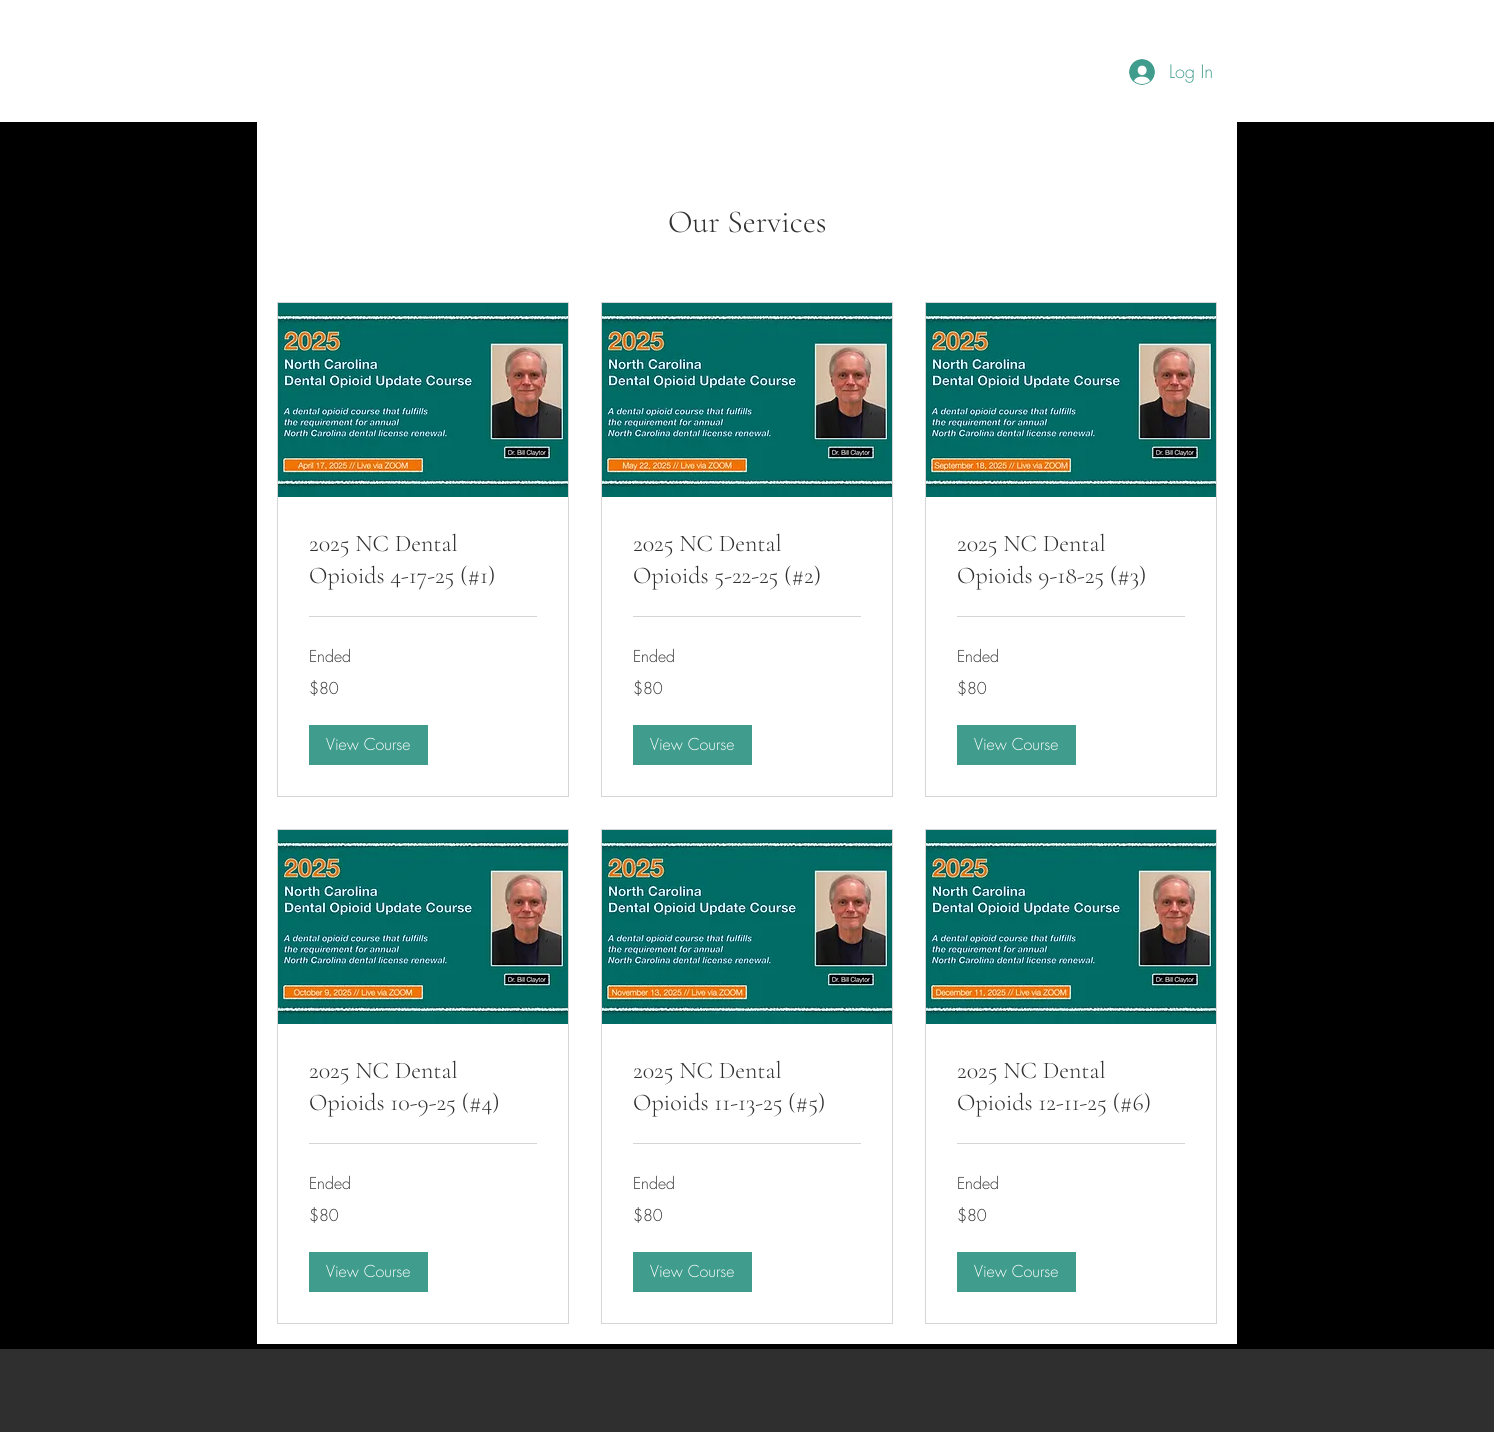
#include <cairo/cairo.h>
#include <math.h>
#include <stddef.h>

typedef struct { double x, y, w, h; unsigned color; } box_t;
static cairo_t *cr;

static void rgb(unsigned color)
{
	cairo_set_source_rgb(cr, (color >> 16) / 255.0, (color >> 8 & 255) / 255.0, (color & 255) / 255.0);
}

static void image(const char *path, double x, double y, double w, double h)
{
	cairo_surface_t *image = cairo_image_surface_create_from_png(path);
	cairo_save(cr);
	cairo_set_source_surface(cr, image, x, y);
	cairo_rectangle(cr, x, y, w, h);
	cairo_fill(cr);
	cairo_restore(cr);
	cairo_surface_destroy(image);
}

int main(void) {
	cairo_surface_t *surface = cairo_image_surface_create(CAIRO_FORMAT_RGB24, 1494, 1432);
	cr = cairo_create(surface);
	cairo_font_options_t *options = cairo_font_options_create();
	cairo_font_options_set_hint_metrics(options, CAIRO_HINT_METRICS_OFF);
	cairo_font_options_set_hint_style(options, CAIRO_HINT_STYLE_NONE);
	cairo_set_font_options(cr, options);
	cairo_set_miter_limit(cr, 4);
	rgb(0x000000);
	cairo_paint(cr);
	rgb(0xffffff);
	cairo_rectangle(cr, 0, 0, 1494, 122);
	cairo_fill(cr);
	image("img/1.png", 1129, 59, 26, 26);
	cairo_rectangle(cr, 257, 122, 980, 1222);
	cairo_fill(cr);
	cairo_rectangle(cr, 277.5, 302.5, 291, 494);
	rgb(0xd5d5d6);
	cairo_set_line_width(cr, 1);
	cairo_stroke(cr);
	image("img/2.png", 278, 303, 290, 194);
	cairo_rectangle(cr, 309, 616, 228, 1);
	cairo_fill(cr);
	rgb(0x409c8c);
	cairo_rectangle(cr, 309, 725, 119, 40);
	cairo_fill(cr);
	cairo_rectangle(cr, 601.5, 302.5, 291, 494);
	rgb(0xd5d5d6);
	cairo_stroke(cr);
	image("img/3.png", 602, 303, 290, 194);
	cairo_rectangle(cr, 633, 616, 228, 1);
	cairo_fill(cr);
	rgb(0x409c8c);
	cairo_rectangle(cr, 633, 725, 119, 40);
	cairo_fill(cr);
	cairo_rectangle(cr, 925.5, 302.5, 291, 494);
	rgb(0xd5d5d6);
	cairo_stroke(cr);
	image("img/4.png", 926, 303, 290, 194);
	cairo_rectangle(cr, 957, 616, 228, 1);
	cairo_fill(cr);
	rgb(0x409c8c);
	cairo_rectangle(cr, 957, 725, 119, 40);
	cairo_fill(cr);
	cairo_rectangle(cr, 277.5, 829.5, 291, 494);
	rgb(0xd5d5d6);
	cairo_stroke(cr);
	image("img/5.png", 278, 830, 290, 194);
	cairo_rectangle(cr, 309, 1143, 228, 1);
	cairo_fill(cr);
	rgb(0x409c8c);
	cairo_rectangle(cr, 309, 1252, 119, 40);
	cairo_fill(cr);
	cairo_rectangle(cr, 601.5, 829.5, 291, 494);
	rgb(0xd5d5d6);
	cairo_stroke(cr);
	image("img/6.png", 602, 830, 290, 194);
	cairo_rectangle(cr, 633, 1143, 228, 1);
	cairo_fill(cr);
	rgb(0x409c8c);
	cairo_rectangle(cr, 633, 1252, 119, 40);
	cairo_fill(cr);
	cairo_rectangle(cr, 925.5, 829.5, 291, 494);
	rgb(0xd5d5d6);
	cairo_stroke(cr);
	image("img/7.png", 926, 830, 290, 194);
	{
		static const box_t items[] = {
			{957, 1143, 228, 1, 0xd5d5d6},
			{957, 1252, 119, 40, 0x409c8c},
			{0, 1349, 1494, 83, 0x2f2f30},
		};
		for (size_t i = 0; i < sizeof items / sizeof *items; i++) {
			rgb(items[i].color);
			cairo_rectangle(cr, items[i].x, items[i].y, items[i].w, items[i].h);
			cairo_fill(cr);
		}
	}
	cairo_select_font_face(cr, "futura Light", CAIRO_FONT_SLANT_NORMAL, CAIRO_FONT_WEIGHT_NORMAL);
	cairo_set_font_size(cr, 18);
	rgb(0x409c8c);
	cairo_move_to(cr, 1169, 78);
	cairo_show_text(cr, "Log In");
	cairo_select_font_face(cr, "Cormorant Garamond Light", CAIRO_FONT_SLANT_NORMAL, CAIRO_FONT_WEIGHT_NORMAL);
	cairo_set_font_size(cr, 32);
	rgb(0x2f2f30);
	cairo_move_to(cr, 668, 232);
	cairo_show_text(cr, "Our Services");
	cairo_set_font_size(cr, 24);
	cairo_move_to(cr, 309, 551);
	cairo_show_text(cr, "2025 NC Dental");
	cairo_move_to(cr, 309, 583);
	cairo_show_text(cr, "Opioids 4-17-25 (#1)");
	cairo_select_font_face(cr, "futura Light", CAIRO_FONT_SLANT_NORMAL, CAIRO_FONT_WEIGHT_NORMAL);
	cairo_set_font_size(cr, 16);
	cairo_move_to(cr, 309, 662);
	cairo_show_text(cr, "Ended");
	cairo_move_to(cr, 309, 694);
	cairo_show_text(cr, "$80");
	rgb(0xffffff);
	cairo_move_to(cr, 326, 750);
	cairo_show_text(cr, "View Course");
	cairo_select_font_face(cr, "Cormorant Garamond Light", CAIRO_FONT_SLANT_NORMAL, CAIRO_FONT_WEIGHT_NORMAL);
	cairo_set_font_size(cr, 24);
	rgb(0x2f2f30);
	cairo_move_to(cr, 633, 551);
	cairo_show_text(cr, "2025 NC Dental");
	cairo_move_to(cr, 633, 583);
	cairo_show_text(cr, "Opioids 5-22-25 (#2)");
	cairo_select_font_face(cr, "futura Light", CAIRO_FONT_SLANT_NORMAL, CAIRO_FONT_WEIGHT_NORMAL);
	cairo_set_font_size(cr, 16);
	cairo_move_to(cr, 633, 662);
	cairo_show_text(cr, "Ended");
	cairo_move_to(cr, 633, 694);
	cairo_show_text(cr, "$80");
	rgb(0xffffff);
	cairo_move_to(cr, 650, 750);
	cairo_show_text(cr, "View Course");
	cairo_select_font_face(cr, "Cormorant Garamond Light", CAIRO_FONT_SLANT_NORMAL, CAIRO_FONT_WEIGHT_NORMAL);
	cairo_set_font_size(cr, 24);
	rgb(0x2f2f30);
	cairo_move_to(cr, 957, 551);
	cairo_show_text(cr, "2025 NC Dental");
	cairo_move_to(cr, 957, 583);
	cairo_show_text(cr, "Opioids 9-18-25 (#3)");
	cairo_select_font_face(cr, "futura Light", CAIRO_FONT_SLANT_NORMAL, CAIRO_FONT_WEIGHT_NORMAL);
	cairo_set_font_size(cr, 16);
	cairo_move_to(cr, 957, 662);
	cairo_show_text(cr, "Ended");
	cairo_move_to(cr, 957, 694);
	cairo_show_text(cr, "$80");
	rgb(0xffffff);
	cairo_move_to(cr, 974, 750);
	cairo_show_text(cr, "View Course");
	cairo_select_font_face(cr, "Cormorant Garamond Light", CAIRO_FONT_SLANT_NORMAL, CAIRO_FONT_WEIGHT_NORMAL);
	cairo_set_font_size(cr, 24);
	rgb(0x2f2f30);
	cairo_move_to(cr, 309, 1078);
	cairo_show_text(cr, "2025 NC Dental");
	cairo_move_to(cr, 309, 1110);
	cairo_show_text(cr, "Opioids 10-9-25 (#4)");
	cairo_select_font_face(cr, "futura Light", CAIRO_FONT_SLANT_NORMAL, CAIRO_FONT_WEIGHT_NORMAL);
	cairo_set_font_size(cr, 16);
	cairo_move_to(cr, 309, 1189);
	cairo_show_text(cr, "Ended");
	cairo_move_to(cr, 309, 1221);
	cairo_show_text(cr, "$80");
	rgb(0xffffff);
	cairo_move_to(cr, 326, 1277);
	cairo_show_text(cr, "View Course");
	cairo_select_font_face(cr, "Cormorant Garamond Light", CAIRO_FONT_SLANT_NORMAL, CAIRO_FONT_WEIGHT_NORMAL);
	cairo_set_font_size(cr, 24);
	rgb(0x2f2f30);
	cairo_move_to(cr, 633, 1078);
	cairo_show_text(cr, "2025 NC Dental");
	cairo_move_to(cr, 633, 1110);
	cairo_show_text(cr, "Opioids 11-13-25 (#5)");
	cairo_select_font_face(cr, "futura Light", CAIRO_FONT_SLANT_NORMAL, CAIRO_FONT_WEIGHT_NORMAL);
	cairo_set_font_size(cr, 16);
	cairo_move_to(cr, 633, 1189);
	cairo_show_text(cr, "Ended");
	cairo_move_to(cr, 633, 1221);
	cairo_show_text(cr, "$80");
	rgb(0xffffff);
	cairo_move_to(cr, 650, 1277);
	cairo_show_text(cr, "View Course");
	cairo_select_font_face(cr, "Cormorant Garamond Light", CAIRO_FONT_SLANT_NORMAL, CAIRO_FONT_WEIGHT_NORMAL);
	cairo_set_font_size(cr, 24);
	rgb(0x2f2f30);
	cairo_move_to(cr, 957, 1078);
	cairo_show_text(cr, "2025 NC Dental");
	cairo_move_to(cr, 957, 1110);
	cairo_show_text(cr, "Opioids 12-11-25 (#6)");
	cairo_select_font_face(cr, "futura Light", CAIRO_FONT_SLANT_NORMAL, CAIRO_FONT_WEIGHT_NORMAL);
	cairo_set_font_size(cr, 16);
	cairo_move_to(cr, 957, 1189);
	cairo_show_text(cr, "Ended");
	cairo_move_to(cr, 957, 1221);
	cairo_show_text(cr, "$80");
	rgb(0xffffff);
	cairo_move_to(cr, 974, 1277);
	cairo_show_text(cr, "View Course");
	cairo_surface_write_to_png(surface, "page.png");
	cairo_font_options_destroy(options);
	cairo_destroy(cr);
	cairo_surface_destroy(surface);
	return 0;
}
